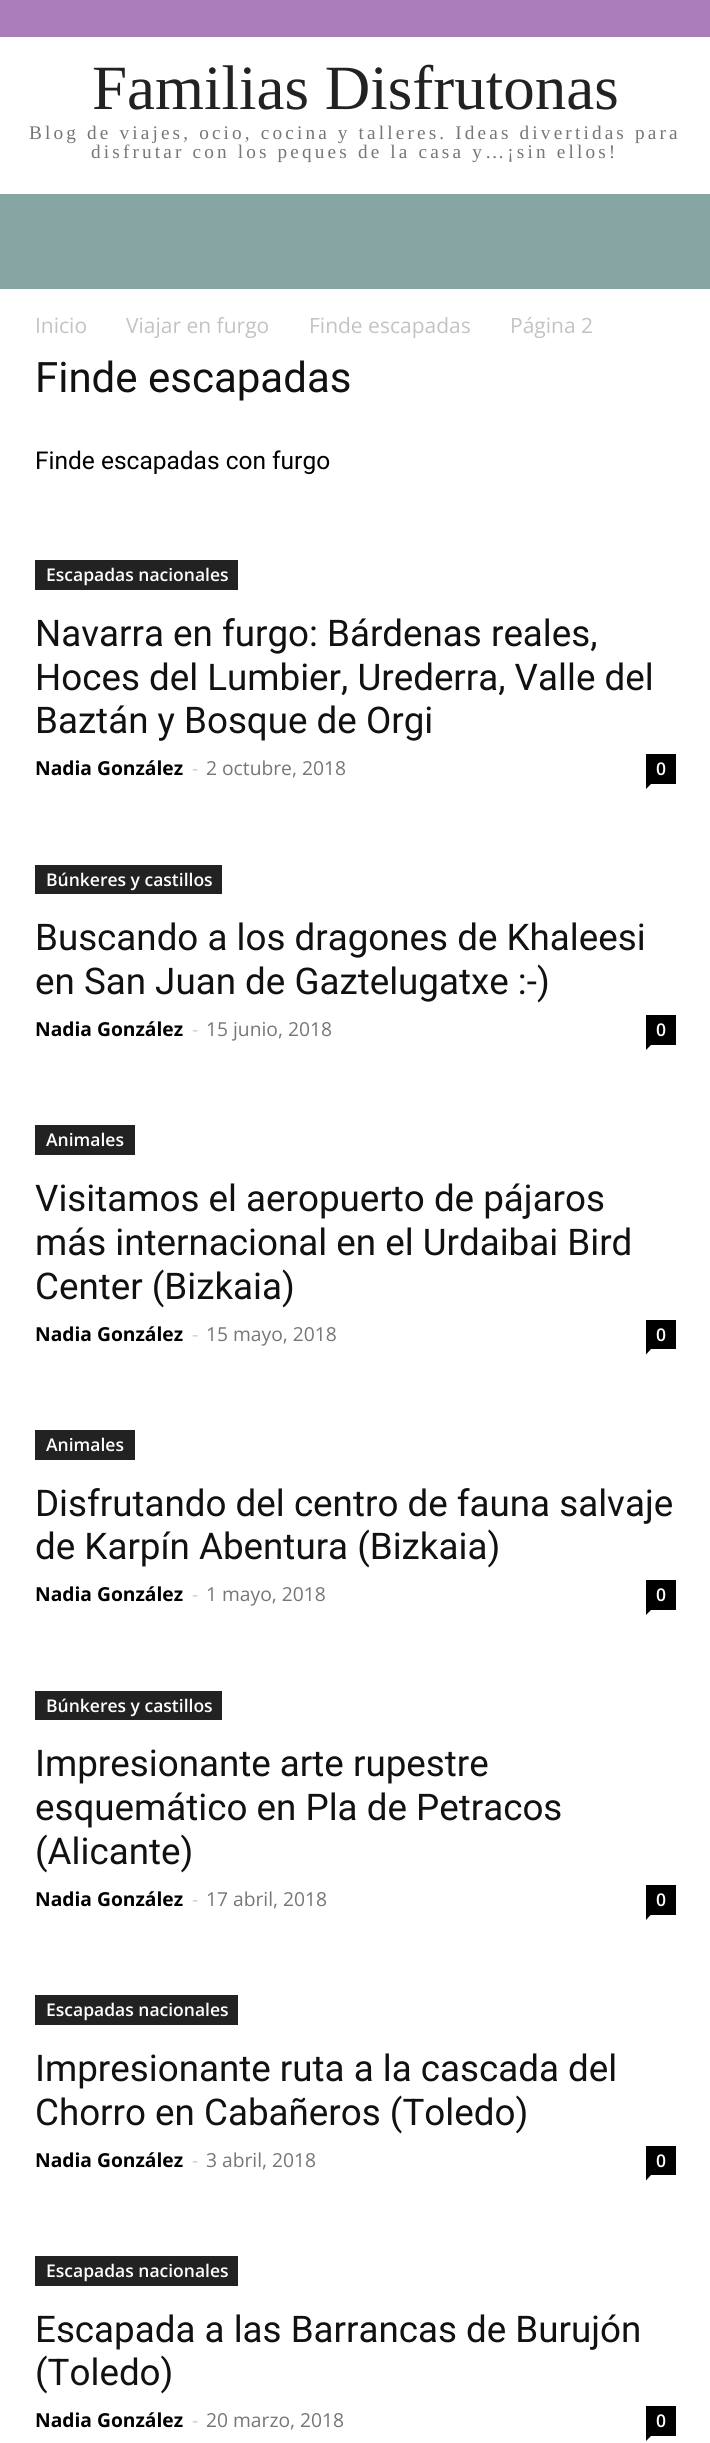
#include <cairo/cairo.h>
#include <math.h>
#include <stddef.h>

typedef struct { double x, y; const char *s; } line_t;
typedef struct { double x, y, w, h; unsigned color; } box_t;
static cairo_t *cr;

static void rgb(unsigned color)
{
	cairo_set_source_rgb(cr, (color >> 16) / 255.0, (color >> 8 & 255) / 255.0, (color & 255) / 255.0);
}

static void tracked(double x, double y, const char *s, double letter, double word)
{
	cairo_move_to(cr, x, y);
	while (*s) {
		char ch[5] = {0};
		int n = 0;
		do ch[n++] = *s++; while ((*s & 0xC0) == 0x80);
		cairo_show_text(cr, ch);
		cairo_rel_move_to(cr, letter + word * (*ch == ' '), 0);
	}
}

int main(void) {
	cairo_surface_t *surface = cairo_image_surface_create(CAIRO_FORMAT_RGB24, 710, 2443);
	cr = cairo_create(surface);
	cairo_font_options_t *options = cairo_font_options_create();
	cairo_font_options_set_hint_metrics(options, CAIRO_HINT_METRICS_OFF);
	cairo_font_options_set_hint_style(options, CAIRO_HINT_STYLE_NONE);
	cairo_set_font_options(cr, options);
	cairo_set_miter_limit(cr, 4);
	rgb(0xffffff);
	cairo_paint(cr);
	{
		static const box_t items[] = {
			{0, 0, 710, 37, 0xab7eb9},
			{0, 194, 710, 95, 0x86a5a3},
			{35, 560, 203, 30, 0x222222},
			{646, 754, 30, 30, 0x000000},
		};
		for (size_t i = 0; i < sizeof items / sizeof *items; i++) {
			rgb(items[i].color);
			cairo_rectangle(cr, items[i].x, items[i].y, items[i].w, items[i].h);
			cairo_fill(cr);
		}
	}
	cairo_new_path(cr);
	cairo_move_to(cr, 646, 784);
	cairo_line_to(cr, 651, 784);
	cairo_line_to(cr, 646, 789);
	cairo_close_path(cr);
	cairo_fill(cr);
	rgb(0x222222);
	cairo_rectangle(cr, 35, 865, 187, 29);
	cairo_fill(cr);
	rgb(0x000000);
	cairo_rectangle(cr, 646, 1015, 30, 30);
	cairo_fill(cr);
	cairo_new_path(cr);
	cairo_move_to(cr, 646, 1045);
	cairo_line_to(cr, 651, 1045);
	cairo_line_to(cr, 646, 1050);
	cairo_close_path(cr);
	cairo_fill(cr);
	rgb(0x222222);
	cairo_rectangle(cr, 35, 1125, 100, 30);
	cairo_fill(cr);
	rgb(0x000000);
	cairo_rectangle(cr, 646, 1320, 30, 29);
	cairo_fill(cr);
	cairo_new_path(cr);
	cairo_move_to(cr, 646, 1349);
	cairo_line_to(cr, 651, 1349);
	cairo_line_to(cr, 646, 1354.5);
	cairo_close_path(cr);
	cairo_fill(cr);
	rgb(0x222222);
	cairo_rectangle(cr, 35, 1430, 100, 30);
	cairo_fill(cr);
	rgb(0x000000);
	cairo_rectangle(cr, 646, 1580, 30, 30);
	cairo_fill(cr);
	cairo_new_path(cr);
	cairo_move_to(cr, 646, 1610);
	cairo_line_to(cr, 651, 1610);
	cairo_line_to(cr, 646, 1615);
	cairo_close_path(cr);
	cairo_fill(cr);
	rgb(0x222222);
	cairo_rectangle(cr, 35, 1691, 187, 29);
	cairo_fill(cr);
	rgb(0x000000);
	cairo_rectangle(cr, 646, 1885, 30, 30);
	cairo_fill(cr);
	cairo_new_path(cr);
	cairo_move_to(cr, 646, 1914.5);
	cairo_line_to(cr, 651, 1914.5);
	cairo_line_to(cr, 646, 1920);
	cairo_close_path(cr);
	cairo_fill(cr);
	rgb(0x222222);
	cairo_rectangle(cr, 35, 1995, 203, 30);
	cairo_fill(cr);
	rgb(0x000000);
	cairo_rectangle(cr, 646, 2146, 30, 29);
	cairo_fill(cr);
	cairo_new_path(cr);
	cairo_move_to(cr, 646, 2175);
	cairo_line_to(cr, 651, 2175);
	cairo_line_to(cr, 646, 2180.5);
	cairo_close_path(cr);
	cairo_fill(cr);
	rgb(0x222222);
	cairo_rectangle(cr, 35, 2256, 203, 30);
	cairo_fill(cr);
	rgb(0x000000);
	cairo_rectangle(cr, 646, 2406, 30, 30);
	cairo_fill(cr);
	cairo_new_path(cr);
	cairo_move_to(cr, 646, 2436);
	cairo_line_to(cr, 651, 2436);
	cairo_line_to(cr, 646, 2441);
	cairo_close_path(cr);
	cairo_fill(cr);
	cairo_select_font_face(cr, "Liberation Serif", CAIRO_FONT_SLANT_NORMAL, CAIRO_FONT_WEIGHT_NORMAL);
	cairo_set_font_size(cr, 63);
	rgb(0x222222);
	cairo_move_to(cr, 92, 109);
	cairo_show_text(cr, "Familias Disfrutonas");
	cairo_set_font_size(cr, 19.25);
	rgb(0x767676);
	tracked(29, 139, "Blog de viajes, ocio, cocina y talleres. Ideas divertidas para", 3.15, 0);
	tracked(91, 158, "disfrutar con los peques de la casa y…¡sin ellos!", 3.15, 0);
	cairo_select_font_face(cr, "Open Sans", CAIRO_FONT_SLANT_NORMAL, CAIRO_FONT_WEIGHT_NORMAL);
	cairo_set_font_size(cr, 21);
	rgb(0xc3c3c3);
	{
		static const line_t items[] = {
			{35, 333, "Inicio"},
			{126, 333, "Viajar en furgo"},
			{309, 333, "Finde escapadas"},
			{510, 333, "Página 2"},
		};
		for (size_t i = 0; i < sizeof items / sizeof *items; i++) {
			cairo_move_to(cr, items[i].x, items[i].y);
			cairo_show_text(cr, items[i].s);
		}
	}
	cairo_select_font_face(cr, "Roboto", CAIRO_FONT_SLANT_NORMAL, CAIRO_FONT_WEIGHT_NORMAL);
	cairo_set_font_size(cr, 42);
	rgb(0x111111);
	cairo_move_to(cr, 35, 392);
	cairo_show_text(cr, "Finde escapadas");
	cairo_set_font_size(cr, 24.5);
	rgb(0x000000);
	cairo_move_to(cr, 35, 469);
	cairo_show_text(cr, "Finde escapadas con furgo");
	cairo_select_font_face(cr, "Open Sans SemiBold", CAIRO_FONT_SLANT_NORMAL, CAIRO_FONT_WEIGHT_NORMAL);
	cairo_set_font_size(cr, 17.5);
	rgb(0xffffff);
	cairo_move_to(cr, 46, 581);
	cairo_show_text(cr, "Escapadas nacionales");
	cairo_select_font_face(cr, "Roboto", CAIRO_FONT_SLANT_NORMAL, CAIRO_FONT_WEIGHT_NORMAL);
	cairo_set_font_size(cr, 36.75);
	rgb(0x111111);
	{
		static const line_t items[] = {
			{35, 646, "Navarra en furgo: Bárdenas reales,"},
			{35, 690, "Hoces del Lumbier, Urederra, Valle del"},
			{35, 733, "Baztán y Bosque de Orgi"},
		};
		for (size_t i = 0; i < sizeof items / sizeof *items; i++) {
			cairo_move_to(cr, items[i].x, items[i].y);
			cairo_show_text(cr, items[i].s);
		}
	}
	cairo_select_font_face(cr, "Open Sans", CAIRO_FONT_SLANT_NORMAL, CAIRO_FONT_WEIGHT_BOLD);
	cairo_set_font_size(cr, 19.25);
	rgb(0x000000);
	cairo_move_to(cr, 35, 775);
	cairo_show_text(cr, "Nadia González");
	cairo_select_font_face(cr, "Open Sans", CAIRO_FONT_SLANT_NORMAL, CAIRO_FONT_WEIGHT_NORMAL);
	rgb(0xcccccc);
	cairo_move_to(cr, 192, 775);
	cairo_show_text(cr, "-");
	rgb(0x767676);
	cairo_move_to(cr, 206, 775);
	cairo_show_text(cr, "2 octubre, 2018");
	cairo_select_font_face(cr, "Open Sans SemiBold", CAIRO_FONT_SLANT_NORMAL, CAIRO_FONT_WEIGHT_NORMAL);
	cairo_set_font_size(cr, 17.5);
	rgb(0xffffff);
	cairo_move_to(cr, 656, 775);
	cairo_show_text(cr, "0");
	cairo_move_to(cr, 46, 886);
	cairo_show_text(cr, "Búnkeres y castillos");
	cairo_select_font_face(cr, "Roboto", CAIRO_FONT_SLANT_NORMAL, CAIRO_FONT_WEIGHT_NORMAL);
	cairo_set_font_size(cr, 36.75);
	rgb(0x111111);
	cairo_move_to(cr, 35, 950);
	cairo_show_text(cr, "Buscando a los dragones de Khaleesi");
	cairo_move_to(cr, 35, 994);
	cairo_show_text(cr, "en San Juan de Gaztelugatxe :-)");
	cairo_select_font_face(cr, "Open Sans", CAIRO_FONT_SLANT_NORMAL, CAIRO_FONT_WEIGHT_BOLD);
	cairo_set_font_size(cr, 19.25);
	rgb(0x000000);
	cairo_move_to(cr, 35, 1036);
	cairo_show_text(cr, "Nadia González");
	cairo_select_font_face(cr, "Open Sans", CAIRO_FONT_SLANT_NORMAL, CAIRO_FONT_WEIGHT_NORMAL);
	rgb(0xcccccc);
	cairo_move_to(cr, 192, 1036);
	cairo_show_text(cr, "-");
	rgb(0x767676);
	cairo_move_to(cr, 206, 1036);
	cairo_show_text(cr, "15 junio, 2018");
	cairo_select_font_face(cr, "Open Sans SemiBold", CAIRO_FONT_SLANT_NORMAL, CAIRO_FONT_WEIGHT_NORMAL);
	cairo_set_font_size(cr, 17.5);
	rgb(0xffffff);
	cairo_move_to(cr, 656, 1036);
	cairo_show_text(cr, "0");
	cairo_move_to(cr, 46, 1146);
	cairo_show_text(cr, "Animales");
	cairo_select_font_face(cr, "Roboto", CAIRO_FONT_SLANT_NORMAL, CAIRO_FONT_WEIGHT_NORMAL);
	cairo_set_font_size(cr, 36.75);
	rgb(0x111111);
	{
		static const line_t items[] = {
			{35, 1211, "Visitamos el aeropuerto de pájaros"},
			{35, 1255, "más internacional en el Urdaibai Bird"},
			{35, 1299, "Center (Bizkaia)"},
		};
		for (size_t i = 0; i < sizeof items / sizeof *items; i++) {
			cairo_move_to(cr, items[i].x, items[i].y);
			cairo_show_text(cr, items[i].s);
		}
	}
	cairo_select_font_face(cr, "Open Sans", CAIRO_FONT_SLANT_NORMAL, CAIRO_FONT_WEIGHT_BOLD);
	cairo_set_font_size(cr, 19.25);
	rgb(0x000000);
	cairo_move_to(cr, 35, 1341);
	cairo_show_text(cr, "Nadia González");
	cairo_select_font_face(cr, "Open Sans", CAIRO_FONT_SLANT_NORMAL, CAIRO_FONT_WEIGHT_NORMAL);
	rgb(0xcccccc);
	cairo_move_to(cr, 192, 1341);
	cairo_show_text(cr, "-");
	rgb(0x767676);
	cairo_move_to(cr, 206, 1341);
	cairo_show_text(cr, "15 mayo, 2018");
	cairo_select_font_face(cr, "Open Sans SemiBold", CAIRO_FONT_SLANT_NORMAL, CAIRO_FONT_WEIGHT_NORMAL);
	cairo_set_font_size(cr, 17.5);
	rgb(0xffffff);
	cairo_move_to(cr, 656, 1341);
	cairo_show_text(cr, "0");
	cairo_move_to(cr, 46, 1451);
	cairo_show_text(cr, "Animales");
	cairo_select_font_face(cr, "Roboto", CAIRO_FONT_SLANT_NORMAL, CAIRO_FONT_WEIGHT_NORMAL);
	cairo_set_font_size(cr, 36.75);
	rgb(0x111111);
	cairo_move_to(cr, 35, 1516);
	cairo_show_text(cr, "Disfrutando del centro de fauna salvaje");
	cairo_move_to(cr, 35, 1559);
	cairo_show_text(cr, "de Karpín Abentura (Bizkaia)");
	cairo_select_font_face(cr, "Open Sans", CAIRO_FONT_SLANT_NORMAL, CAIRO_FONT_WEIGHT_BOLD);
	cairo_set_font_size(cr, 19.25);
	rgb(0x000000);
	cairo_move_to(cr, 35, 1601);
	cairo_show_text(cr, "Nadia González");
	cairo_select_font_face(cr, "Open Sans", CAIRO_FONT_SLANT_NORMAL, CAIRO_FONT_WEIGHT_NORMAL);
	rgb(0xcccccc);
	cairo_move_to(cr, 192, 1601);
	cairo_show_text(cr, "-");
	rgb(0x767676);
	cairo_move_to(cr, 206, 1601);
	cairo_show_text(cr, "1 mayo, 2018");
	cairo_select_font_face(cr, "Open Sans SemiBold", CAIRO_FONT_SLANT_NORMAL, CAIRO_FONT_WEIGHT_NORMAL);
	cairo_set_font_size(cr, 17.5);
	rgb(0xffffff);
	cairo_move_to(cr, 656, 1601);
	cairo_show_text(cr, "0");
	cairo_move_to(cr, 46, 1712);
	cairo_show_text(cr, "Búnkeres y castillos");
	cairo_select_font_face(cr, "Roboto", CAIRO_FONT_SLANT_NORMAL, CAIRO_FONT_WEIGHT_NORMAL);
	cairo_set_font_size(cr, 36.75);
	rgb(0x111111);
	{
		static const line_t items[] = {
			{35, 1776, "Impresionante arte rupestre"},
			{35, 1820, "esquemático en Pla de Petracos"},
			{35, 1864, "(Alicante)"},
		};
		for (size_t i = 0; i < sizeof items / sizeof *items; i++) {
			cairo_move_to(cr, items[i].x, items[i].y);
			cairo_show_text(cr, items[i].s);
		}
	}
	cairo_select_font_face(cr, "Open Sans", CAIRO_FONT_SLANT_NORMAL, CAIRO_FONT_WEIGHT_BOLD);
	cairo_set_font_size(cr, 19.25);
	rgb(0x000000);
	cairo_move_to(cr, 35, 1906);
	cairo_show_text(cr, "Nadia González");
	cairo_select_font_face(cr, "Open Sans", CAIRO_FONT_SLANT_NORMAL, CAIRO_FONT_WEIGHT_NORMAL);
	rgb(0xcccccc);
	cairo_move_to(cr, 192, 1906);
	cairo_show_text(cr, "-");
	rgb(0x767676);
	cairo_move_to(cr, 206, 1906);
	cairo_show_text(cr, "17 abril, 2018");
	cairo_select_font_face(cr, "Open Sans SemiBold", CAIRO_FONT_SLANT_NORMAL, CAIRO_FONT_WEIGHT_NORMAL);
	cairo_set_font_size(cr, 17.5);
	rgb(0xffffff);
	cairo_move_to(cr, 656, 1906);
	cairo_show_text(cr, "0");
	cairo_move_to(cr, 46, 2016);
	cairo_show_text(cr, "Escapadas nacionales");
	cairo_select_font_face(cr, "Roboto", CAIRO_FONT_SLANT_NORMAL, CAIRO_FONT_WEIGHT_NORMAL);
	cairo_set_font_size(cr, 36.75);
	rgb(0x111111);
	cairo_move_to(cr, 35, 2081);
	cairo_show_text(cr, "Impresionante ruta a la cascada del");
	cairo_move_to(cr, 35, 2125);
	cairo_show_text(cr, "Chorro en Cabañeros (Toledo)");
	cairo_select_font_face(cr, "Open Sans", CAIRO_FONT_SLANT_NORMAL, CAIRO_FONT_WEIGHT_BOLD);
	cairo_set_font_size(cr, 19.25);
	rgb(0x000000);
	cairo_move_to(cr, 35, 2167);
	cairo_show_text(cr, "Nadia González");
	cairo_select_font_face(cr, "Open Sans", CAIRO_FONT_SLANT_NORMAL, CAIRO_FONT_WEIGHT_NORMAL);
	rgb(0xcccccc);
	cairo_move_to(cr, 192, 2167);
	cairo_show_text(cr, "-");
	rgb(0x767676);
	cairo_move_to(cr, 206, 2167);
	cairo_show_text(cr, "3 abril, 2018");
	cairo_select_font_face(cr, "Open Sans SemiBold", CAIRO_FONT_SLANT_NORMAL, CAIRO_FONT_WEIGHT_NORMAL);
	cairo_set_font_size(cr, 17.5);
	rgb(0xffffff);
	cairo_move_to(cr, 656, 2167);
	cairo_show_text(cr, "0");
	cairo_move_to(cr, 46, 2277);
	cairo_show_text(cr, "Escapadas nacionales");
	cairo_select_font_face(cr, "Roboto", CAIRO_FONT_SLANT_NORMAL, CAIRO_FONT_WEIGHT_NORMAL);
	cairo_set_font_size(cr, 36.75);
	rgb(0x111111);
	cairo_move_to(cr, 35, 2342);
	cairo_show_text(cr, "Escapada a las Barrancas de Burujón");
	cairo_move_to(cr, 35, 2385);
	cairo_show_text(cr, "(Toledo)");
	cairo_select_font_face(cr, "Open Sans", CAIRO_FONT_SLANT_NORMAL, CAIRO_FONT_WEIGHT_BOLD);
	cairo_set_font_size(cr, 19.25);
	rgb(0x000000);
	cairo_move_to(cr, 35, 2427);
	cairo_show_text(cr, "Nadia González");
	cairo_select_font_face(cr, "Open Sans", CAIRO_FONT_SLANT_NORMAL, CAIRO_FONT_WEIGHT_NORMAL);
	rgb(0xcccccc);
	cairo_move_to(cr, 192, 2427);
	cairo_show_text(cr, "-");
	rgb(0x767676);
	cairo_move_to(cr, 206, 2427);
	cairo_show_text(cr, "20 marzo, 2018");
	cairo_select_font_face(cr, "Open Sans SemiBold", CAIRO_FONT_SLANT_NORMAL, CAIRO_FONT_WEIGHT_NORMAL);
	cairo_set_font_size(cr, 17.5);
	rgb(0xffffff);
	cairo_move_to(cr, 656, 2427);
	cairo_show_text(cr, "0");
	cairo_surface_write_to_png(surface, "page.png");
	cairo_font_options_destroy(options);
	cairo_destroy(cr);
	cairo_surface_destroy(surface);
	return 0;
}
